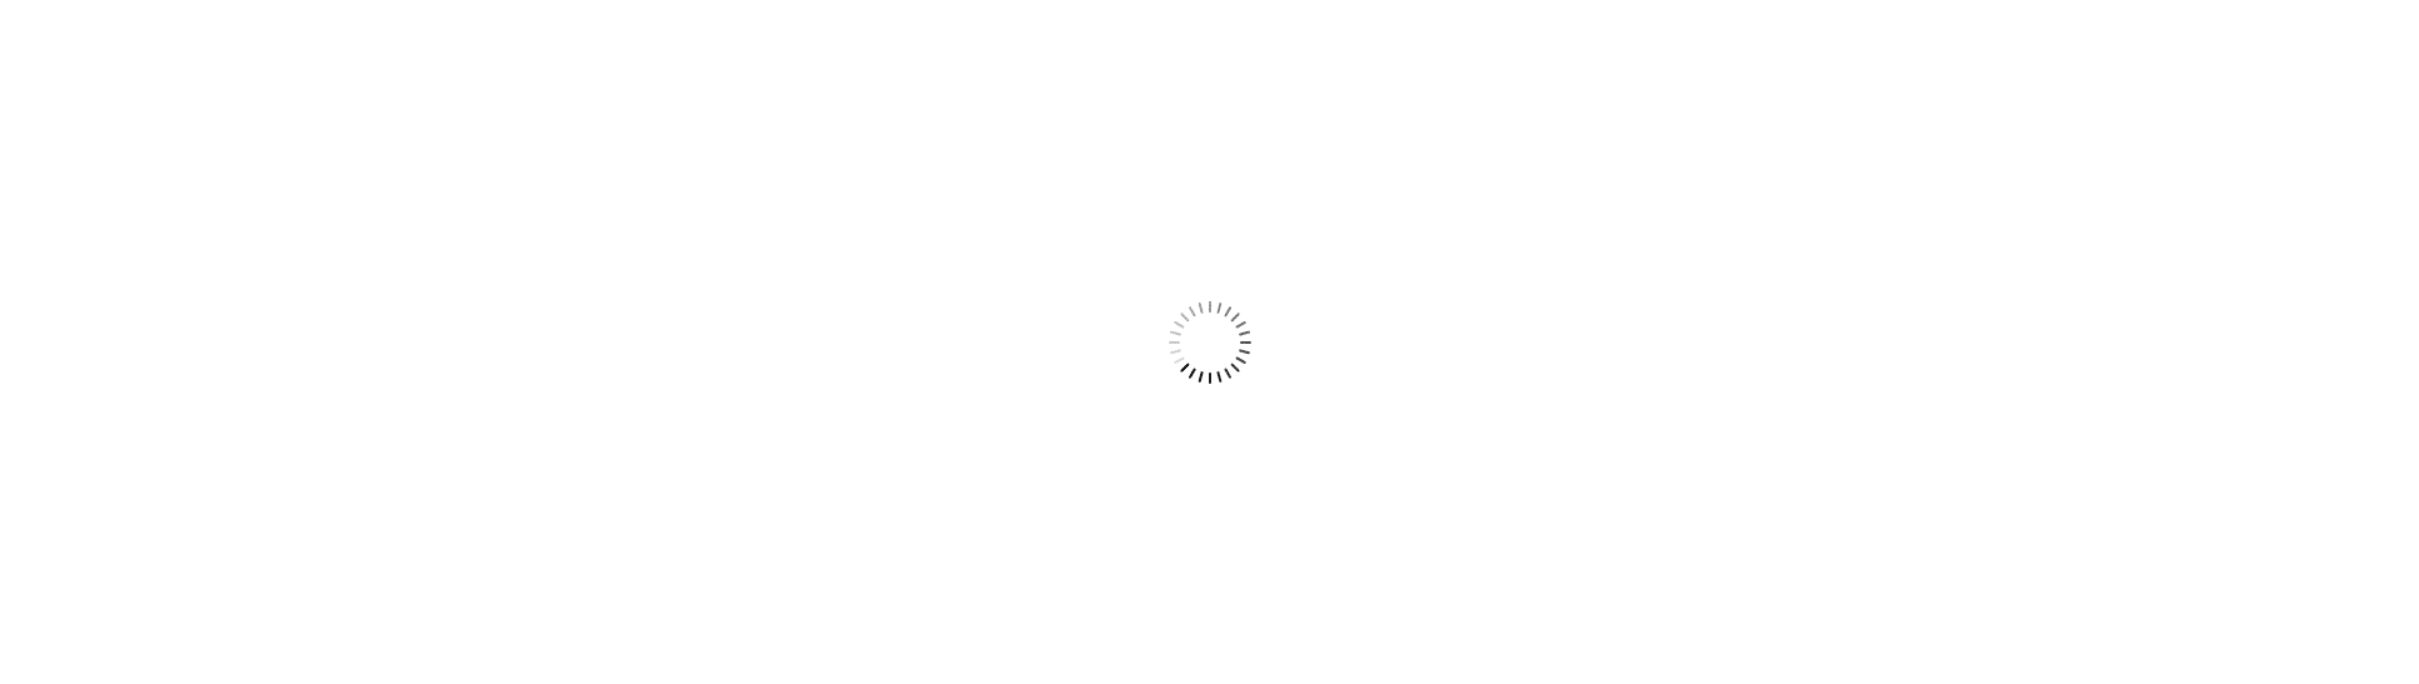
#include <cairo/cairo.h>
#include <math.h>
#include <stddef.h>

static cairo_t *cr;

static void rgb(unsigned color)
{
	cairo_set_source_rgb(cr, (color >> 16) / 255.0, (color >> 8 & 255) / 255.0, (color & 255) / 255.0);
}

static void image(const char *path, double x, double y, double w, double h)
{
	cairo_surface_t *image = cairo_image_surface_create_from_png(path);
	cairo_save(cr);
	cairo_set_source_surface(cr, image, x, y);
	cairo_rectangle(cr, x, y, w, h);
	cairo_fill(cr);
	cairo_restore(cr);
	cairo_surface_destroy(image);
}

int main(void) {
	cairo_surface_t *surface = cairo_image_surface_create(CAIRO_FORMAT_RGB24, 2419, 684);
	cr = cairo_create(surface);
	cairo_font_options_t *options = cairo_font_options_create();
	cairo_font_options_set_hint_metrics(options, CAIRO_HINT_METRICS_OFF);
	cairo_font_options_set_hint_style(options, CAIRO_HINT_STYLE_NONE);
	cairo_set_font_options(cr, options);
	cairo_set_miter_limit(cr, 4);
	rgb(0xffffff);
	cairo_paint(cr);
	image("img/1.png", 1168, 301, 84, 83);
	cairo_surface_write_to_png(surface, "page.png");
	cairo_font_options_destroy(options);
	cairo_destroy(cr);
	cairo_surface_destroy(surface);
	return 0;
}
